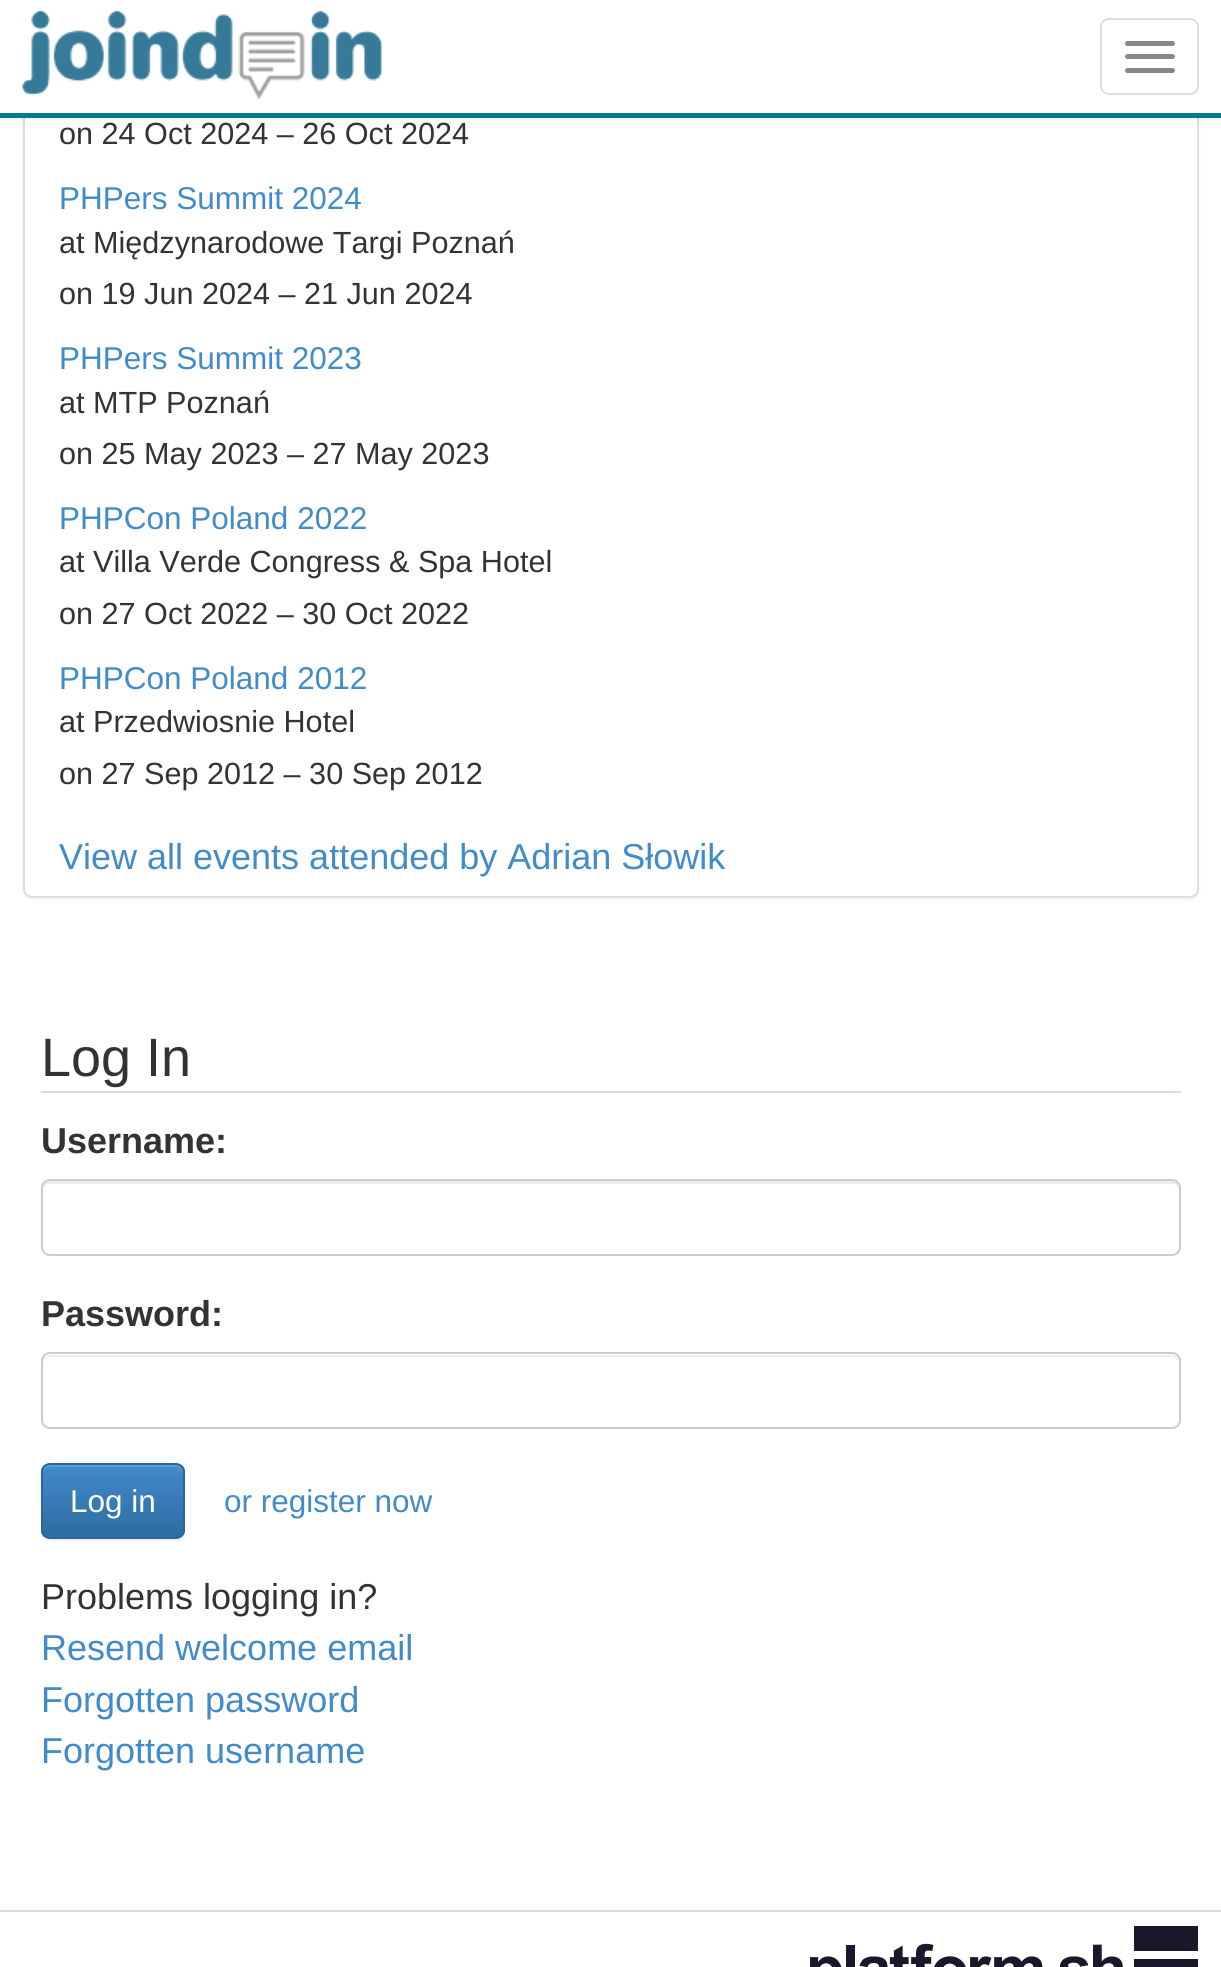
#include <cairo/cairo.h>
#include <math.h>
#include <stddef.h>

typedef struct { double x, y; const char *s; } line_t;
static cairo_t *cr;

static void rgb(unsigned color)
{
	cairo_set_source_rgb(cr, (color >> 16) / 255.0, (color >> 8 & 255) / 255.0, (color & 255) / 255.0);
}

static void rrect(double x, double y, double w, double h, double r)
{
	cairo_new_sub_path(cr);
	cairo_arc(cr, x + w - r, y + h - r, r, 0, M_PI / 2);
	cairo_arc(cr, x + r, y + h - r, r, M_PI / 2, M_PI);
	cairo_arc(cr, x + r, y + r, r, M_PI, 1.5 * M_PI);
	cairo_arc(cr, x + w - r, y + r, r, 1.5 * M_PI, 2 * M_PI);
	cairo_close_path(cr);
}

static void soft_shadow(double x, double y, double w, double h, double r, double blur, double alpha)
{
	cairo_push_group_with_content(cr, CAIRO_CONTENT_ALPHA);
	cairo_set_operator(cr, CAIRO_OPERATOR_SOURCE);
	for (int i = 15; i >= -15 && fmin(w, h) + blur * i / 3 > 0; i -= 2) {
		double e = blur * i / 6;
		cairo_set_source_rgba(cr, 0, 0, 0, alpha * erfc((i - 1) / 8.5) / 2);
		rrect(x - e, y - e, w + 2 * e, h + 2 * e, fmax(0, fmin(r + e + blur * .6, fmin(w, h) / 2 + e)));
		cairo_fill(cr);
	}
	cairo_pattern_t *soft = cairo_pop_group(cr);
	cairo_mask(cr, soft);
	cairo_pattern_destroy(soft);
}

static void image(const char *path, double x, double y, double w, double h)
{
	cairo_surface_t *image = cairo_image_surface_create_from_png(path);
	cairo_save(cr);
	cairo_set_source_surface(cr, image, x, y);
	cairo_rectangle(cr, x, y, w, h);
	cairo_fill(cr);
	cairo_restore(cr);
	cairo_surface_destroy(image);
}

int main(void) {
	cairo_surface_t *surface = cairo_image_surface_create(CAIRO_FORMAT_RGB24, 1221, 1967);
	cr = cairo_create(surface);
	cairo_font_options_t *options = cairo_font_options_create();
	cairo_font_options_set_hint_metrics(options, CAIRO_HINT_METRICS_OFF);
	cairo_font_options_set_hint_style(options, CAIRO_HINT_STYLE_NONE);
	cairo_set_font_options(cr, options);
	cairo_set_miter_limit(cr, 4);
	cairo_pattern_t *gradient;
	rgb(0xffffff);
	cairo_paint(cr);
	rgb(0x000000);
	soft_shadow(23, -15, 1176, 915, 9, 2, 0.05);
	rgb(0xffffff);
	rrect(24, -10, 1174, 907, 8);
	cairo_fill_preserve(cr);
	rgb(0xdddddd);
	cairo_stroke(cr);
	rgb(0x000000);
	soft_shadow(0, 2, 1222, 117, 0, 5.5, 0.07);
	rgb(0xffffff);
	cairo_rectangle(cr, 0, 0, 1221, 113);
	cairo_fill(cr);
	rgb(0x007b97);
	cairo_rectangle(cr, 0, 113, 1221, 5);
	cairo_fill(cr);
	image("img/1.png", 22, 11, 361, 89);
	rrect(1101, 19, 97, 75, 8);
	rgb(0xdddddd);
	cairo_stroke(cr);
	rgb(0x888888);
	rrect(1125, 41, 50, 5, 2.5);
	cairo_fill(cr);
	rrect(1125, 54, 50, 5, 2.5);
	cairo_fill(cr);
	rrect(1125, 68, 50, 5, 2.5);
	cairo_fill(cr);
	rgb(0xd7dcdf);
	cairo_rectangle(cr, 41, 1091, 1140, 2);
	cairo_fill(cr);
	rgb(0xececec);
	cairo_new_path(cr);
	cairo_move_to(cr, 50, 1184);
	cairo_line_to(cr, 1172, 1184);
	cairo_curve_to(cr, 1176, 1184, 1179, 1187, 1179, 1190);
	cairo_line_to(cr, 1179, 1188);
	cairo_curve_to(cr, 1179, 1184, 1176, 1181, 1172, 1181);
	cairo_line_to(cr, 50, 1181);
	cairo_curve_to(cr, 46, 1181, 43, 1184, 43, 1188);
	cairo_line_to(cr, 43, 1190);
	cairo_curve_to(cr, 43, 1187, 46, 1184, 50, 1184);
	cairo_close_path(cr);
	cairo_fill(cr);
	rrect(42, 1180, 1138, 75, 8);
	rgb(0xcccccc);
	cairo_stroke(cr);
	rgb(0xececec);
	cairo_new_path(cr);
	cairo_move_to(cr, 50, 1357);
	cairo_line_to(cr, 1172, 1357);
	cairo_curve_to(cr, 1176, 1357, 1179, 1360, 1179, 1364);
	cairo_line_to(cr, 1179, 1362);
	cairo_curve_to(cr, 1179, 1358, 1176, 1355, 1172, 1355);
	cairo_line_to(cr, 50, 1355);
	cairo_curve_to(cr, 46, 1355, 43, 1358, 43, 1362);
	cairo_line_to(cr, 43, 1364);
	cairo_curve_to(cr, 43, 1360, 46, 1357, 50, 1357);
	cairo_close_path(cr);
	cairo_fill(cr);
	rrect(42, 1353, 1138, 75, 8);
	rgb(0xcccccc);
	cairo_stroke(cr);
	rgb(0x000000);
	soft_shadow(41, 1465, 144, 76, 9, 1, 0.07);
	cairo_save(cr);
	rrect(41, 1463, 144, 76, 9);
	cairo_clip(cr);
	gradient = cairo_pattern_create_linear(113, 1465, 113, 1537);
	cairo_pattern_add_color_stop_rgba(gradient, 0, 0.259, 0.545, 0.792, 1);
	cairo_pattern_add_color_stop_rgba(gradient, 1, 0.176, 0.424, 0.635, 1);
	cairo_set_source(cr, gradient);
	cairo_pattern_destroy(gradient);
	cairo_rectangle(cr, 41, 1465, 144, 72);
	cairo_fill(cr);
	cairo_restore(cr);
	cairo_set_source_rgba(cr, 1, 1, 1, 0.15);
	cairo_new_path(cr);
	cairo_move_to(cr, 50, 1467);
	cairo_line_to(cr, 176, 1467);
	cairo_curve_to(cr, 179, 1467, 182, 1470, 182, 1474);
	cairo_line_to(cr, 182, 1472);
	cairo_curve_to(cr, 182, 1468, 179, 1465, 175, 1465);
	cairo_line_to(cr, 50, 1465);
	cairo_curve_to(cr, 46, 1465, 43, 1468, 43, 1472);
	cairo_line_to(cr, 43, 1474);
	cairo_curve_to(cr, 43, 1470, 46, 1467, 50, 1467);
	cairo_close_path(cr);
	cairo_fill(cr);
	rrect(42, 1464, 142, 74, 8);
	rgb(0x2b669a);
	cairo_stroke(cr);
	rgb(0xd7dcdf);
	cairo_rectangle(cr, 0, 1910, 1221, 2);
	cairo_fill(cr);
	image("img/2.png", 810, 1926, 388, 41);
	cairo_select_font_face(cr, "Liberation Sans", CAIRO_FONT_SLANT_NORMAL, CAIRO_FONT_WEIGHT_NORMAL);
	cairo_set_font_size(cr, 30.6);
	rgb(0x333333);
	cairo_move_to(cr, 59, 144);
	cairo_show_text(cr, "on 24 Oct 2024 – 26 Oct 2024");
	cairo_set_font_size(cr, 31.5);
	rgb(0x428bca);
	cairo_move_to(cr, 59, 209);
	cairo_show_text(cr, "PHPers Summit 2024");
	cairo_set_font_size(cr, 30.6);
	rgb(0x333333);
	cairo_move_to(cr, 59, 253);
	cairo_show_text(cr, "at Międzynarodowe Targi Poznań");
	cairo_move_to(cr, 59, 304);
	cairo_show_text(cr, "on 19 Jun 2024 – 21 Jun 2024");
	cairo_set_font_size(cr, 31.5);
	rgb(0x428bca);
	cairo_move_to(cr, 59, 369);
	cairo_show_text(cr, "PHPers Summit 2023");
	cairo_set_font_size(cr, 30.6);
	rgb(0x333333);
	cairo_move_to(cr, 59, 413);
	cairo_show_text(cr, "at MTP Poznań");
	cairo_move_to(cr, 59, 464);
	cairo_show_text(cr, "on 25 May 2023 – 27 May 2023");
	cairo_set_font_size(cr, 31.5);
	rgb(0x428bca);
	cairo_move_to(cr, 59, 529);
	cairo_show_text(cr, "PHPCon Poland 2022");
	cairo_set_font_size(cr, 30.6);
	rgb(0x333333);
	cairo_move_to(cr, 59, 572);
	cairo_show_text(cr, "at Villa Verde Congress & Spa Hotel");
	cairo_move_to(cr, 59, 624);
	cairo_show_text(cr, "on 27 Oct 2022 – 30 Oct 2022");
	cairo_set_font_size(cr, 31.5);
	rgb(0x428bca);
	cairo_move_to(cr, 59, 689);
	cairo_show_text(cr, "PHPCon Poland 2012");
	cairo_set_font_size(cr, 30.6);
	rgb(0x333333);
	cairo_move_to(cr, 59, 732);
	cairo_show_text(cr, "at Przedwiosnie Hotel");
	cairo_move_to(cr, 59, 784);
	cairo_show_text(cr, "on 27 Sep 2012 – 30 Sep 2012");
	cairo_set_font_size(cr, 36);
	rgb(0x428bca);
	cairo_move_to(cr, 59, 869);
	cairo_show_text(cr, "View all events attended by Adrian Słowik");
	cairo_set_font_size(cr, 54);
	rgb(0x333333);
	cairo_move_to(cr, 41, 1076);
	cairo_show_text(cr, "Log In");
	cairo_select_font_face(cr, "Liberation Sans", CAIRO_FONT_SLANT_NORMAL, CAIRO_FONT_WEIGHT_BOLD);
	cairo_set_font_size(cr, 36);
	cairo_move_to(cr, 41, 1153);
	cairo_show_text(cr, "Username:");
	cairo_move_to(cr, 41, 1326);
	cairo_show_text(cr, "Password:");
	cairo_select_font_face(cr, "Liberation Sans", CAIRO_FONT_SLANT_NORMAL, CAIRO_FONT_WEIGHT_NORMAL);
	cairo_set_font_size(cr, 31.5);
	rgb(0xffffff);
	cairo_move_to(cr, 70, 1512);
	cairo_show_text(cr, "Log in");
	rgb(0x428bca);
	cairo_move_to(cr, 224, 1512);
	cairo_show_text(cr, "or register now");
	cairo_set_font_size(cr, 36);
	rgb(0x333333);
	cairo_move_to(cr, 41, 1609);
	cairo_show_text(cr, "Problems logging in?");
	rgb(0x428bca);
	{
		static const line_t items[] = {
			{41, 1660, "Resend welcome email"},
			{41, 1712, "Forgotten password"},
			{41, 1763, "Forgotten username"},
		};
		for (size_t i = 0; i < sizeof items / sizeof *items; i++) {
			cairo_move_to(cr, items[i].x, items[i].y);
			cairo_show_text(cr, items[i].s);
		}
	}
	cairo_surface_write_to_png(surface, "page.png");
	cairo_font_options_destroy(options);
	cairo_destroy(cr);
	cairo_surface_destroy(surface);
	return 0;
}
